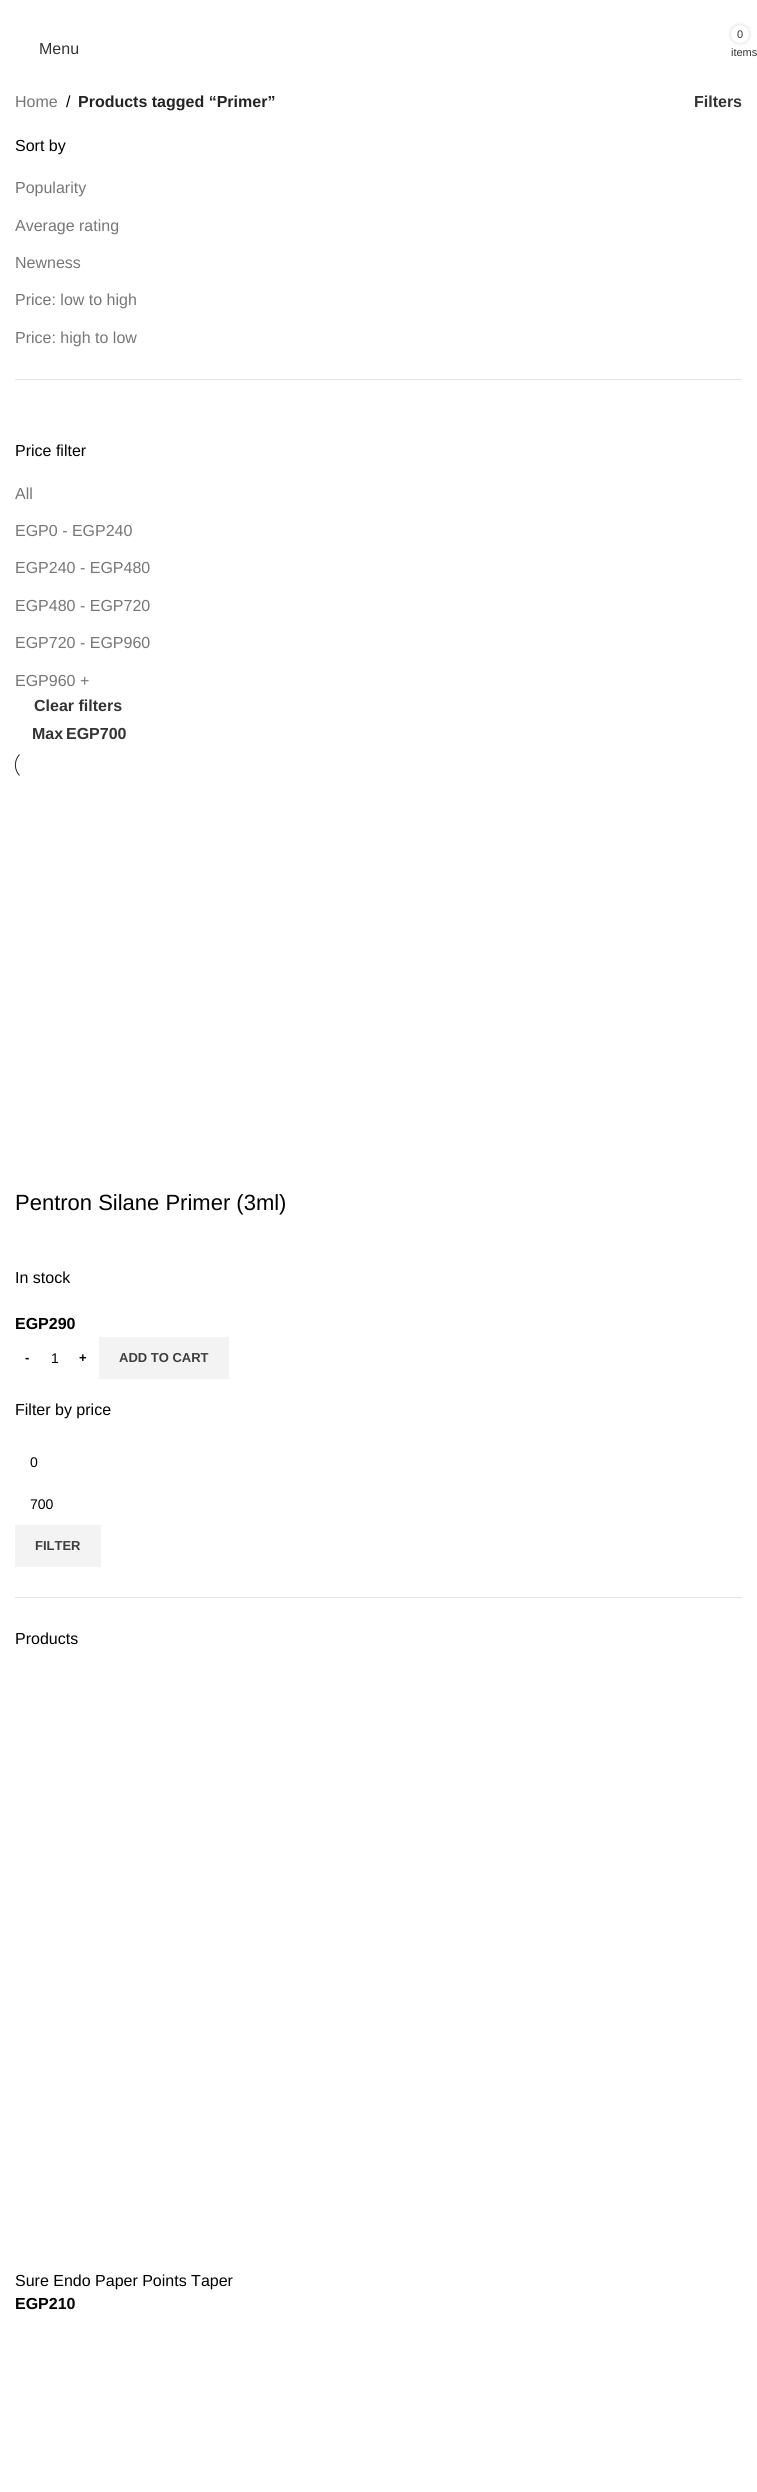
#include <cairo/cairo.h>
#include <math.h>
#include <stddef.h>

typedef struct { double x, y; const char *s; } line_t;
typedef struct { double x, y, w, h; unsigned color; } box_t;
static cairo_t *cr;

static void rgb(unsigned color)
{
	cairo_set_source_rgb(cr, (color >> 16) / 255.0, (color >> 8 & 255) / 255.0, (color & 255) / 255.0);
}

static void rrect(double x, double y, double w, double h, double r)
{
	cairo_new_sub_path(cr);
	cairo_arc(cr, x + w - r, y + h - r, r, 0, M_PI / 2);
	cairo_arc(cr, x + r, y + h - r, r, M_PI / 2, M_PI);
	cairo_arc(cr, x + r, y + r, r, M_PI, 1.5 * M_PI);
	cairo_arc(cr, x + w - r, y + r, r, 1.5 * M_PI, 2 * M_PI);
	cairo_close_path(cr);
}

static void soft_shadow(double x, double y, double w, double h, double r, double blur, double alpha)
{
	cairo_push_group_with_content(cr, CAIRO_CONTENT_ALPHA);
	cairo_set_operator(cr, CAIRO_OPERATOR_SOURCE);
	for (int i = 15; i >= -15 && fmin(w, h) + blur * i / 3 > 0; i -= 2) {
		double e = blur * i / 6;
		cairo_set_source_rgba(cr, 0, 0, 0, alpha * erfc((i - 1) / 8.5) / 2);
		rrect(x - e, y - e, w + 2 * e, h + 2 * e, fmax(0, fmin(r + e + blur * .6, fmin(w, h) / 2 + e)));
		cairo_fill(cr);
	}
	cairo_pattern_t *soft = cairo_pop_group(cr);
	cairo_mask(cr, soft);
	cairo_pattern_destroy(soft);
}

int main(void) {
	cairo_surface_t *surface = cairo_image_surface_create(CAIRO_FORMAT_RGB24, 757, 2492);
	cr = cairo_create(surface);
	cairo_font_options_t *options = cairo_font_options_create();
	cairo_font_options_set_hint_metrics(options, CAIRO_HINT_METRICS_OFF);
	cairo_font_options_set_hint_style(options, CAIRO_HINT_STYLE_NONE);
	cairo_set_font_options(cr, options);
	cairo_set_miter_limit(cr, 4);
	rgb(0xffffff);
	cairo_paint(cr);
	rgb(0x000000);
	soft_shadow(731, 25, 18, 18, 9, 2, 0.17);
	rgb(0xffffff);
	cairo_arc(cr, 740, 34, 9, 0, 2 * M_PI);
	cairo_fill(cr);
	rgb(0xe4e4e4);
	cairo_rectangle(cr, 15, 379, 727, 1);
	cairo_fill(cr);
	cairo_new_path(cr);
	cairo_move_to(cr, 19.5, 775.5);
	cairo_curve_to(cr, 14, 769.5, 14, 760.5, 19.5, 754.5);
	rgb(0x242424);
	cairo_set_line_width(cr, 1);
	cairo_stroke(cr);
	{
		static const box_t items[] = {
			{99, 1337, 130, 42, 0xf3f3f3},
			{15, 1597, 727, 1, 0xe4e4e4},
			{15, 1525, 86, 42, 0xf3f3f3},
		};
		for (size_t i = 0; i < sizeof items / sizeof *items; i++) {
			rgb(items[i].color);
			cairo_rectangle(cr, items[i].x, items[i].y, items[i].w, items[i].h);
			cairo_fill(cr);
		}
	}
	cairo_select_font_face(cr, "Liberation Sans", CAIRO_FONT_SLANT_NORMAL, CAIRO_FONT_WEIGHT_NORMAL);
	cairo_set_font_size(cr, 16);
	rgb(0x333333);
	cairo_move_to(cr, 39, 54);
	cairo_show_text(cr, "Menu");
	cairo_set_font_size(cr, 11);
	cairo_move_to(cr, 737, 38);
	cairo_show_text(cr, "0");
	cairo_move_to(cr, 731, 56);
	cairo_show_text(cr, "items");
	cairo_set_font_size(cr, 16);
	rgb(0x767676);
	cairo_move_to(cr, 15, 107);
	cairo_show_text(cr, "Home");
	rgb(0x000000);
	cairo_move_to(cr, 66, 107);
	cairo_show_text(cr, "/");
	cairo_select_font_face(cr, "Liberation Sans", CAIRO_FONT_SLANT_NORMAL, CAIRO_FONT_WEIGHT_BOLD);
	rgb(0x242424);
	cairo_move_to(cr, 78, 107);
	cairo_show_text(cr, "Products tagged “Primer”");
	rgb(0x333333);
	cairo_move_to(cr, 694, 107);
	cairo_show_text(cr, "Filters");
	cairo_select_font_face(cr, "Liberation Sans", CAIRO_FONT_SLANT_NORMAL, CAIRO_FONT_WEIGHT_NORMAL);
	rgb(0x000000);
	cairo_move_to(cr, 15, 151);
	cairo_show_text(cr, "Sort by");
	rgb(0x767676);
	{
		static const line_t items[] = {
			{15, 193, "Popularity"},
			{15, 231, "Average rating"},
			{15, 268, "Newness"},
			{15, 305, "Price: low to high"},
			{15, 343, "Price: high to low"},
		};
		for (size_t i = 0; i < sizeof items / sizeof *items; i++) {
			cairo_move_to(cr, items[i].x, items[i].y);
			cairo_show_text(cr, items[i].s);
		}
	}
	rgb(0x000000);
	cairo_move_to(cr, 15, 456);
	cairo_show_text(cr, "Price filter");
	rgb(0x767676);
	{
		static const line_t items[] = {
			{15, 499, "All"},
			{15, 536, "EGP0 - EGP240"},
			{15, 573, "EGP240 - EGP480"},
			{15, 611, "EGP480 - EGP720"},
			{15, 648, "EGP720 - EGP960"},
			{15, 686, "EGP960 +"},
		};
		for (size_t i = 0; i < sizeof items / sizeof *items; i++) {
			cairo_move_to(cr, items[i].x, items[i].y);
			cairo_show_text(cr, items[i].s);
		}
	}
	cairo_select_font_face(cr, "Liberation Sans", CAIRO_FONT_SLANT_NORMAL, CAIRO_FONT_WEIGHT_BOLD);
	rgb(0x333333);
	{
		static const line_t items[] = {
			{34, 711, "Clear filters"},
			{32, 739, "Max"},
			{66, 739, "EGP700"},
		};
		for (size_t i = 0; i < sizeof items / sizeof *items; i++) {
			cairo_move_to(cr, items[i].x, items[i].y);
			cairo_show_text(cr, items[i].s);
		}
	}
	cairo_select_font_face(cr, "Liberation Sans", CAIRO_FONT_SLANT_NORMAL, CAIRO_FONT_WEIGHT_NORMAL);
	cairo_set_font_size(cr, 22);
	rgb(0x000000);
	cairo_move_to(cr, 15, 1210);
	cairo_show_text(cr, "Pentron Silane Primer (3ml)");
	cairo_set_font_size(cr, 16);
	cairo_move_to(cr, 15, 1283);
	cairo_show_text(cr, "In stock");
	cairo_select_font_face(cr, "Liberation Sans", CAIRO_FONT_SLANT_NORMAL, CAIRO_FONT_WEIGHT_BOLD);
	cairo_move_to(cr, 15, 1329);
	cairo_show_text(cr, "EGP290");
	cairo_set_font_size(cr, 13);
	cairo_move_to(cr, 25, 1362);
	cairo_show_text(cr, "-");
	cairo_select_font_face(cr, "Liberation Sans", CAIRO_FONT_SLANT_NORMAL, CAIRO_FONT_WEIGHT_NORMAL);
	cairo_set_font_size(cr, 14);
	cairo_move_to(cr, 51, 1363);
	cairo_show_text(cr, "1");
	cairo_select_font_face(cr, "Liberation Sans", CAIRO_FONT_SLANT_NORMAL, CAIRO_FONT_WEIGHT_BOLD);
	cairo_set_font_size(cr, 13);
	cairo_move_to(cr, 79, 1362);
	cairo_show_text(cr, "+");
	rgb(0x3e3e3e);
	cairo_move_to(cr, 119, 1362);
	cairo_show_text(cr, "ADD TO CART");
	cairo_select_font_face(cr, "Liberation Sans", CAIRO_FONT_SLANT_NORMAL, CAIRO_FONT_WEIGHT_NORMAL);
	cairo_set_font_size(cr, 16);
	rgb(0x000000);
	cairo_move_to(cr, 15, 1415);
	cairo_show_text(cr, "Filter by price");
	cairo_set_font_size(cr, 14);
	cairo_move_to(cr, 30, 1467);
	cairo_show_text(cr, "0");
	cairo_move_to(cr, 30, 1509);
	cairo_show_text(cr, "700");
	cairo_select_font_face(cr, "Liberation Sans", CAIRO_FONT_SLANT_NORMAL, CAIRO_FONT_WEIGHT_BOLD);
	cairo_set_font_size(cr, 13);
	rgb(0x3e3e3e);
	cairo_move_to(cr, 35, 1550);
	cairo_show_text(cr, "FILTER");
	cairo_select_font_face(cr, "Liberation Sans", CAIRO_FONT_SLANT_NORMAL, CAIRO_FONT_WEIGHT_NORMAL);
	cairo_set_font_size(cr, 16);
	rgb(0x000000);
	cairo_move_to(cr, 15, 1644);
	cairo_show_text(cr, "Products");
	cairo_move_to(cr, 15, 2286);
	cairo_show_text(cr, "Sure Endo Paper Points Taper");
	cairo_select_font_face(cr, "Liberation Sans", CAIRO_FONT_SLANT_NORMAL, CAIRO_FONT_WEIGHT_BOLD);
	cairo_move_to(cr, 15, 2309);
	cairo_show_text(cr, "EGP210");
	cairo_surface_write_to_png(surface, "page.png");
	cairo_font_options_destroy(options);
	cairo_destroy(cr);
	cairo_surface_destroy(surface);
	return 0;
}
